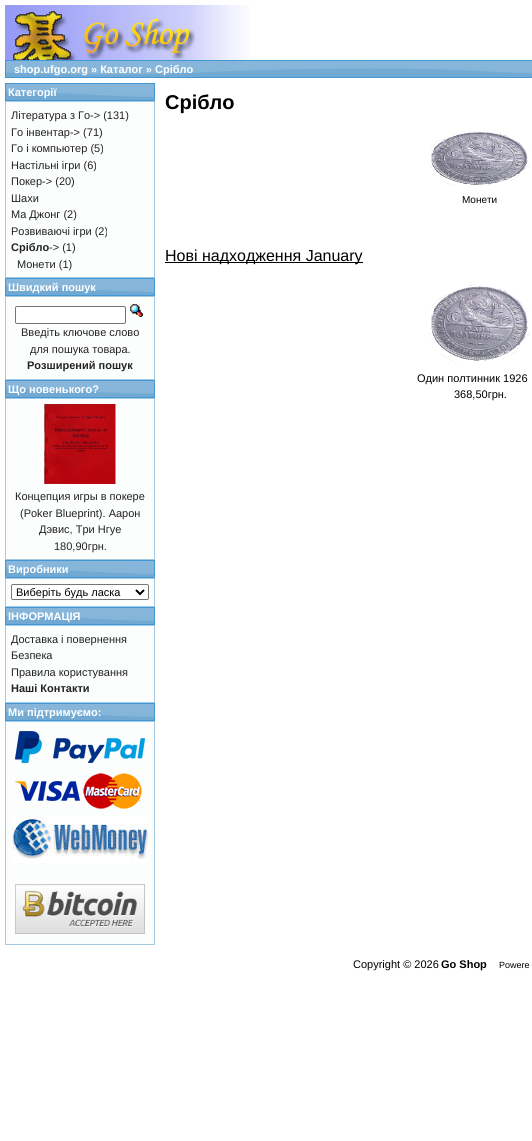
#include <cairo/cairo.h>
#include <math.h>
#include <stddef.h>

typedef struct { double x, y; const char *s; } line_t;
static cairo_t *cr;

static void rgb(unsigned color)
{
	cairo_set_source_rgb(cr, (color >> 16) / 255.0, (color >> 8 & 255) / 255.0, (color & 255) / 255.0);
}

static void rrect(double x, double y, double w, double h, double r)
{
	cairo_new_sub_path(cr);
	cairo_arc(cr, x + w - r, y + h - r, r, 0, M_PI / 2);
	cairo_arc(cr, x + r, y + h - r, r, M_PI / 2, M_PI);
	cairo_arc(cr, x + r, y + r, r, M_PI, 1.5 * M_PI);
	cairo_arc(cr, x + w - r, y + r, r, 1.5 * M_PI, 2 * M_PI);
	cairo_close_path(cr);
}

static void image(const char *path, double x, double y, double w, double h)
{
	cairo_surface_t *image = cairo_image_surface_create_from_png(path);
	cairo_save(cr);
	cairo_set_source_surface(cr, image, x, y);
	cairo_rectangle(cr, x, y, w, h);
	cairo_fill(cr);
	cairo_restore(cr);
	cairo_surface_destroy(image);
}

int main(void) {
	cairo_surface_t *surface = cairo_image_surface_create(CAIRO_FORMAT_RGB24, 532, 1141);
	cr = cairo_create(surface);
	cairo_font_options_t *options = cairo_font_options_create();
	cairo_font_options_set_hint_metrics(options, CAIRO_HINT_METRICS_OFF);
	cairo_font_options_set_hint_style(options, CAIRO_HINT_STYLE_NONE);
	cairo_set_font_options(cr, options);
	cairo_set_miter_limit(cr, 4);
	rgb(0xffffff);
	cairo_paint(cr);
	image("img/1.png", 5, 5, 244, 55);
	image("img/2.png", 6, 61, 526, 16);
	cairo_rectangle(cr, 5.5, 60.5, 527, 17);
	rgb(0x4297d7);
	cairo_set_line_width(cr, 1);
	cairo_stroke(cr);
	image("img/3.png", 6, 84, 148, 16);
	cairo_rectangle(cr, 5.5, 83.5, 149, 17);
	cairo_stroke(cr);
	rgb(0xfcfdfd);
	cairo_rectangle(cr, 5.5, 101.5, 149, 176);
	cairo_fill_preserve(cr);
	rgb(0xa6c9e2);
	cairo_stroke(cr);
	image("img/3.png", 6, 279, 148, 16);
	cairo_rectangle(cr, 5.5, 278.5, 149, 17);
	rgb(0x4297d7);
	cairo_stroke(cr);
	rgb(0xfcfdfd);
	cairo_rectangle(cr, 5.5, 296.5, 149, 83);
	cairo_fill_preserve(cr);
	rgb(0xa6c9e2);
	cairo_stroke(cr);
	rgb(0xffffff);
	rrect(15.5, 306.5, 110, 17, 1.5);
	cairo_fill_preserve(cr);
	rgb(0x767676);
	cairo_stroke(cr);
	image("img/4.png", 130, 304, 13, 13);
	image("img/3.png", 6, 381, 148, 16);
	cairo_rectangle(cr, 5.5, 380.5, 149, 17);
	rgb(0x4297d7);
	cairo_stroke(cr);
	rgb(0xfcfdfd);
	cairo_rectangle(cr, 5.5, 398.5, 149, 161);
	cairo_fill_preserve(cr);
	rgb(0xa6c9e2);
	cairo_stroke(cr);
	image("img/5.png", 44, 404, 72, 80);
	image("img/3.png", 6, 561, 148, 16);
	cairo_rectangle(cr, 5.5, 560.5, 149, 17);
	rgb(0x4297d7);
	cairo_stroke(cr);
	rgb(0xfcfdfd);
	cairo_rectangle(cr, 5.5, 578.5, 149, 28);
	cairo_fill_preserve(cr);
	rgb(0xa6c9e2);
	cairo_stroke(cr);
	rgb(0xffffff);
	rrect(11.5, 584.5, 137, 15, 1.5);
	cairo_fill_preserve(cr);
	rgb(0x767676);
	cairo_stroke(cr);
	cairo_new_path(cr);
	cairo_move_to(cr, 136, 590);
	cairo_line_to(cr, 140, 594);
	cairo_line_to(cr, 144, 590);
	rgb(0x000000);
	cairo_set_line_width(cr, 2);
	cairo_stroke(cr);
	image("img/3.png", 6, 608, 148, 16);
	cairo_rectangle(cr, 5.5, 607.5, 149, 17);
	rgb(0x4297d7);
	cairo_set_line_width(cr, 1);
	cairo_stroke(cr);
	rgb(0xfcfdfd);
	cairo_rectangle(cr, 5.5, 625.5, 149, 77);
	cairo_fill_preserve(cr);
	rgb(0xa6c9e2);
	cairo_stroke(cr);
	image("img/3.png", 6, 704, 148, 16);
	cairo_rectangle(cr, 5.5, 703.5, 149, 17);
	rgb(0x4297d7);
	cairo_stroke(cr);
	rgb(0xfcfdfd);
	cairo_rectangle(cr, 5.5, 721.5, 149, 223);
	cairo_fill_preserve(cr);
	rgb(0xa6c9e2);
	cairo_stroke(cr);
	image("img/6.png", 15, 731, 130, 32);
	image("img/7.png", 15, 781, 65, 20);
	image("img/8.png", 83, 773, 59, 36);
	image("img/9.png", 12, 816, 136, 48);
	image("img/10.png", 15, 884, 130, 50);
	image("img/11.png", 430, 131, 100, 55);
	rgb(0x000000);
	cairo_rectangle(cr, 165, 262, 198, 1);
	cairo_fill(cr);
	image("img/12.png", 430, 285, 100, 78);
	cairo_select_font_face(cr, "Liberation Sans", CAIRO_FONT_SLANT_NORMAL, CAIRO_FONT_WEIGHT_BOLD);
	cairo_set_font_size(cr, 11);
	rgb(0xffffff);
	cairo_move_to(cr, 14, 73);
	cairo_show_text(cr, "shop.ufgo.org » Каталог » Срібло");
	cairo_move_to(cr, 8, 96);
	cairo_show_text(cr, "Категорії");
	cairo_select_font_face(cr, "Liberation Sans", CAIRO_FONT_SLANT_NORMAL, CAIRO_FONT_WEIGHT_NORMAL);
	rgb(0x222222);
	{
		static const line_t items[] = {
			{11, 119, "Література з Го-> (131)"},
			{11, 136, "Го інвентар-> (71)"},
			{11, 152, "Го і компьютер (5)"},
			{11, 169, "Настільні ігри (6)"},
			{11, 185, "Покер-> (20)"},
			{11, 202, "Шахи"},
			{11, 218, "Ма Джонг (2)"},
			{11, 235, "Розвиваючі ігри (2)"},
		};
		for (size_t i = 0; i < sizeof items / sizeof *items; i++) {
			cairo_move_to(cr, items[i].x, items[i].y);
			cairo_show_text(cr, items[i].s);
		}
	}
	cairo_select_font_face(cr, "Liberation Sans", CAIRO_FONT_SLANT_NORMAL, CAIRO_FONT_WEIGHT_BOLD);
	cairo_move_to(cr, 11, 251);
	cairo_show_text(cr, "Срібло");
	cairo_select_font_face(cr, "Liberation Sans", CAIRO_FONT_SLANT_NORMAL, CAIRO_FONT_WEIGHT_NORMAL);
	cairo_move_to(cr, 49, 251);
	cairo_show_text(cr, "-> (1)");
	cairo_move_to(cr, 17, 268);
	cairo_show_text(cr, "Монети (1)");
	cairo_select_font_face(cr, "Liberation Sans", CAIRO_FONT_SLANT_NORMAL, CAIRO_FONT_WEIGHT_BOLD);
	rgb(0xffffff);
	cairo_move_to(cr, 8, 291);
	cairo_show_text(cr, "Швидкий пошук");
	cairo_select_font_face(cr, "Liberation Sans", CAIRO_FONT_SLANT_NORMAL, CAIRO_FONT_WEIGHT_NORMAL);
	rgb(0x222222);
	cairo_move_to(cr, 21, 336);
	cairo_show_text(cr, "Введіть ключове слово");
	cairo_move_to(cr, 30, 353);
	cairo_show_text(cr, "для пошука товара.");
	cairo_select_font_face(cr, "Liberation Sans", CAIRO_FONT_SLANT_NORMAL, CAIRO_FONT_WEIGHT_BOLD);
	cairo_move_to(cr, 27, 369);
	cairo_show_text(cr, "Розширений пошук");
	rgb(0xffffff);
	cairo_move_to(cr, 8, 393);
	cairo_show_text(cr, "Що новенького?");
	cairo_select_font_face(cr, "Liberation Sans", CAIRO_FONT_SLANT_NORMAL, CAIRO_FONT_WEIGHT_NORMAL);
	rgb(0x222222);
	{
		static const line_t items[] = {
			{15, 500, "Концепция игры в покере"},
			{20, 517, "(Poker Blueprint). Аарон"},
			{39, 533, "Дэвис, Три Нгуе"},
			{54, 550, "180,90грн."},
		};
		for (size_t i = 0; i < sizeof items / sizeof *items; i++) {
			cairo_move_to(cr, items[i].x, items[i].y);
			cairo_show_text(cr, items[i].s);
		}
	}
	cairo_select_font_face(cr, "Liberation Sans", CAIRO_FONT_SLANT_NORMAL, CAIRO_FONT_WEIGHT_BOLD);
	rgb(0xffffff);
	cairo_move_to(cr, 8, 573);
	cairo_show_text(cr, "Виробники");
	cairo_select_font_face(cr, "Liberation Sans", CAIRO_FONT_SLANT_NORMAL, CAIRO_FONT_WEIGHT_NORMAL);
	rgb(0x000000);
	cairo_move_to(cr, 16, 596);
	cairo_show_text(cr, "Виберіть будь ласка");
	cairo_select_font_face(cr, "Liberation Sans", CAIRO_FONT_SLANT_NORMAL, CAIRO_FONT_WEIGHT_BOLD);
	rgb(0xffffff);
	cairo_move_to(cr, 8, 620);
	cairo_show_text(cr, "ІНФОРМАЦІЯ");
	cairo_select_font_face(cr, "Liberation Sans", CAIRO_FONT_SLANT_NORMAL, CAIRO_FONT_WEIGHT_NORMAL);
	rgb(0x222222);
	{
		static const line_t items[] = {
			{11, 643, "Доставка і повернення"},
			{11, 659, "Безпека"},
			{11, 676, "Правила користування"},
		};
		for (size_t i = 0; i < sizeof items / sizeof *items; i++) {
			cairo_move_to(cr, items[i].x, items[i].y);
			cairo_show_text(cr, items[i].s);
		}
	}
	cairo_select_font_face(cr, "Liberation Sans", CAIRO_FONT_SLANT_NORMAL, CAIRO_FONT_WEIGHT_BOLD);
	cairo_move_to(cr, 11, 692);
	cairo_show_text(cr, "Наші Контакти");
	rgb(0xffffff);
	cairo_move_to(cr, 8, 716);
	cairo_show_text(cr, "Ми підтримуємо:");
	cairo_set_font_size(cr, 20);
	rgb(0x000000);
	cairo_move_to(cr, 165, 109);
	cairo_show_text(cr, "Срібло");
	cairo_select_font_face(cr, "Liberation Sans", CAIRO_FONT_SLANT_NORMAL, CAIRO_FONT_WEIGHT_NORMAL);
	cairo_set_font_size(cr, 10);
	cairo_move_to(cr, 462, 203);
	cairo_show_text(cr, "Монети");
	cairo_set_font_size(cr, 16);
	cairo_move_to(cr, 165, 261);
	cairo_show_text(cr, "Новi надходження January");
	cairo_set_font_size(cr, 11);
	{
		static const line_t items[] = {
			{417, 382, "Один полтинник 1926"},
			{454, 398, "368,50грн."},
			{353, 968, "Copyright © 2026"},
		};
		for (size_t i = 0; i < sizeof items / sizeof *items; i++) {
			cairo_move_to(cr, items[i].x, items[i].y);
			cairo_show_text(cr, items[i].s);
		}
	}
	cairo_select_font_face(cr, "Liberation Sans", CAIRO_FONT_SLANT_NORMAL, CAIRO_FONT_WEIGHT_BOLD);
	cairo_move_to(cr, 441, 968);
	cairo_show_text(cr, "Go Shop");
	cairo_select_font_face(cr, "Liberation Sans", CAIRO_FONT_SLANT_NORMAL, CAIRO_FONT_WEIGHT_NORMAL);
	cairo_set_font_size(cr, 9);
	cairo_move_to(cr, 499, 968);
	cairo_show_text(cr, "Powere");
	cairo_surface_write_to_png(surface, "page.png");
	cairo_font_options_destroy(options);
	cairo_destroy(cr);
	cairo_surface_destroy(surface);
	return 0;
}
